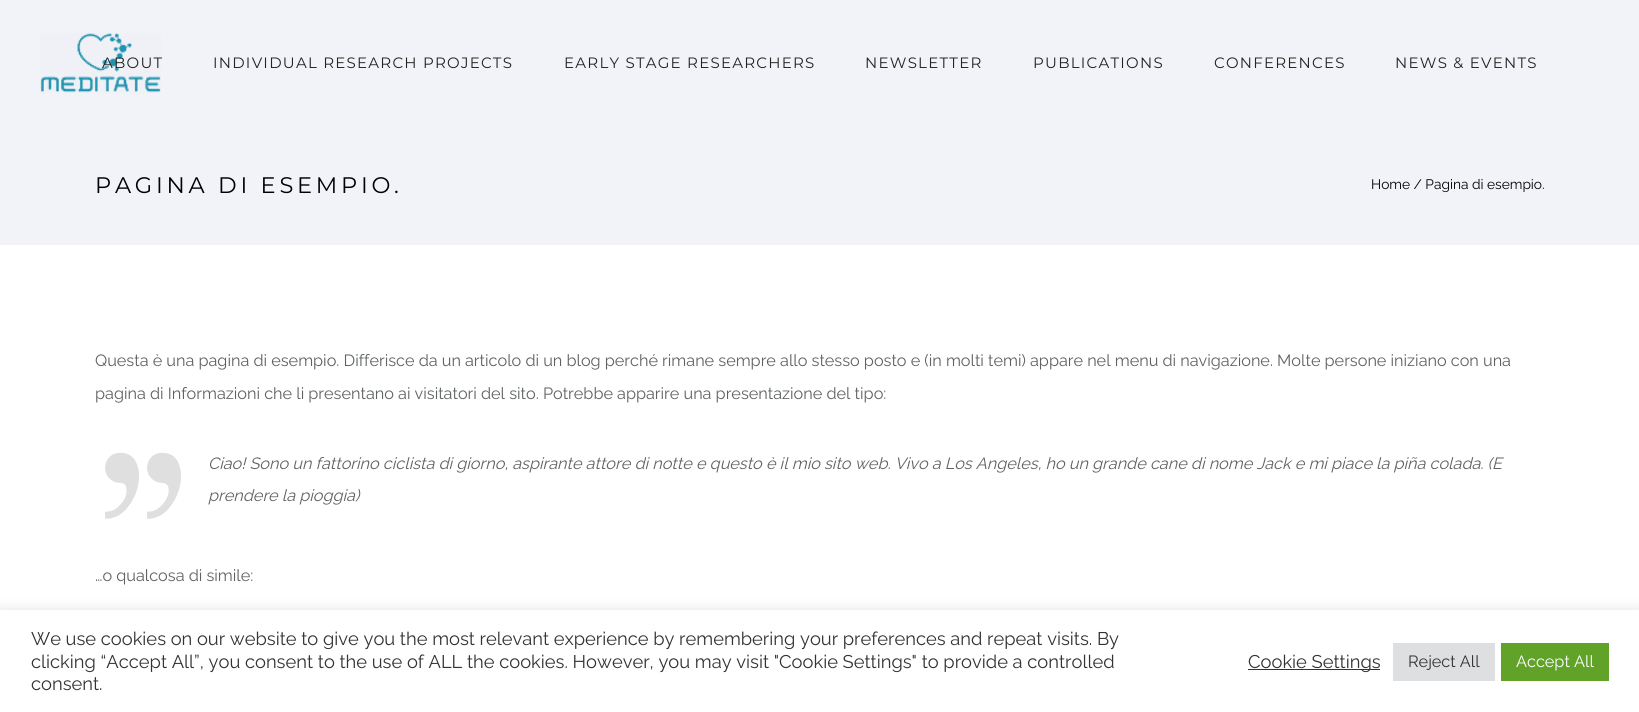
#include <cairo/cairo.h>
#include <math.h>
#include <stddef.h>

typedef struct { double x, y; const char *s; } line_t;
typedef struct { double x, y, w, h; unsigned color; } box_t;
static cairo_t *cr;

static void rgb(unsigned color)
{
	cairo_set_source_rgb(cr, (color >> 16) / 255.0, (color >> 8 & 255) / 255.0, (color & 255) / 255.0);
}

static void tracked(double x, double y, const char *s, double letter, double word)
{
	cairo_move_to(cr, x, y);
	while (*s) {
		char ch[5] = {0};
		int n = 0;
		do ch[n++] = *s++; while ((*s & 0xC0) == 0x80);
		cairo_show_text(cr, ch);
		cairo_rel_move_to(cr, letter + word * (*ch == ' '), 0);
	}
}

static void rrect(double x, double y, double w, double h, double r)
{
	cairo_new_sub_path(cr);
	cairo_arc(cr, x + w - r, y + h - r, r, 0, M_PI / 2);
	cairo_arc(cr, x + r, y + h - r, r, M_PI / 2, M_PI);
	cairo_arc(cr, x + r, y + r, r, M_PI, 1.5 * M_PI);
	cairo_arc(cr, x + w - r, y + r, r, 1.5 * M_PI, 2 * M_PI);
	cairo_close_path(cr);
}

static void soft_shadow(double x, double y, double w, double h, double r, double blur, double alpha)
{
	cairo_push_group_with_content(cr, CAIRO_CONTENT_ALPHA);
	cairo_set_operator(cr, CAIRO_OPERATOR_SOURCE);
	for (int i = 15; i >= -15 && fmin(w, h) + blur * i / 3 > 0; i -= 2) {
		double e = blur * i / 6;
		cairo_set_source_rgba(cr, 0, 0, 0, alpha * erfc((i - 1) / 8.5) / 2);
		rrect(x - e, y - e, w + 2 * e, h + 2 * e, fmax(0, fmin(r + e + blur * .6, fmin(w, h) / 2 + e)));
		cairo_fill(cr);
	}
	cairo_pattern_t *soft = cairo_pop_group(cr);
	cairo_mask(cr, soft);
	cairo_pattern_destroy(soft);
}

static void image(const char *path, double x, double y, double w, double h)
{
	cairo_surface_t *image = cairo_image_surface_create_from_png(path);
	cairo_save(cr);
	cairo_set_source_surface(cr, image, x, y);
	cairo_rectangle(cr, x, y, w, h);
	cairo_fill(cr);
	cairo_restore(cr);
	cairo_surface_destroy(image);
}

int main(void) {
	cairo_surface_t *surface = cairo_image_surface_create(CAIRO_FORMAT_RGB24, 1639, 712);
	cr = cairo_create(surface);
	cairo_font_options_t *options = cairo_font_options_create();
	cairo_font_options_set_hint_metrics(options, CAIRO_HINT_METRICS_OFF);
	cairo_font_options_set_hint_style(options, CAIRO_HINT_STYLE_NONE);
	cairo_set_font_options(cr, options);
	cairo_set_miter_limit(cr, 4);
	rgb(0xf2f3f8);
	cairo_paint(cr);
	image("img/1.png", 40, 33, 121, 60);
	rgb(0xffffff);
	cairo_rectangle(cr, 0, 245, 1639, 365);
	cairo_fill(cr);
	image("img/2.png", 105, 452, 76, 67);
	rgb(0xacabab);
	soft_shadow(0, 609, 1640, 102, 0, 6, 0.3);
	{
		static const box_t items[] = {
			{0, 610, 1639, 102, 0xffffff},
			{1248, 669, 132, 1, 0x333333},
			{1393, 643, 102, 38, 0xdedfe0},
			{1501, 643, 108, 38, 0x61a229},
		};
		for (size_t i = 0; i < sizeof items / sizeof *items; i++) {
			rgb(items[i].color);
			cairo_rectangle(cr, items[i].x, items[i].y, items[i].w, items[i].h);
			cairo_fill(cr);
		}
	}
	cairo_select_font_face(cr, "Montserrat", CAIRO_FONT_SLANT_NORMAL, CAIRO_FONT_WEIGHT_NORMAL);
	cairo_set_font_size(cr, 15);
	rgb(0x232323);
	{
		static const line_t items[] = {
			{102, 68, "ABOUT"},
			{213, 68, "INDIVIDUAL RESEARCH PROJECTS"},
			{564, 68, "EARLY STAGE RESEARCHERS"},
			{865, 68, "NEWSLETTER"},
			{1033, 68, "PUBLICATIONS"},
			{1214, 68, "CONFERENCES"},
			{1395, 68, "NEWS & EVENTS"},
		};
		for (size_t i = 0; i < sizeof items / sizeof *items; i++) {
			tracked(items[i].x, items[i].y, items[i].s, 1.25, 0);
		}
	}
	cairo_set_font_size(cr, 22.5);
	rgb(0x000000);
	tracked(95, 193, "PAGINA DI ESEMPIO.", 3.75, 0);
	cairo_select_font_face(cr, "Raleway Thin", CAIRO_FONT_SLANT_NORMAL, CAIRO_FONT_WEIGHT_NORMAL);
	cairo_set_font_size(cr, 13.75);
	cairo_move_to(cr, 1371, 189);
	cairo_show_text(cr, "Home / Pagina di esempio.");
	cairo_set_font_size(cr, 16.25);
	rgb(0x5f6263);
	cairo_move_to(cr, 95, 366);
	cairo_show_text(cr, "Questa è una pagina di esempio. Differisce da un articolo di un blog perché rimane sempre allo stesso posto e (in molti temi) appare nel menu di navigazione. Molte persone iniziano con una");
	cairo_move_to(cr, 95, 399);
	cairo_show_text(cr, "pagina di Informazioni che li presentano ai visitatori del sito. Potrebbe apparire una presentazione del tipo:");
	cairo_select_font_face(cr, "Raleway Thin", CAIRO_FONT_SLANT_ITALIC, CAIRO_FONT_WEIGHT_NORMAL);
	cairo_move_to(cr, 208, 469);
	cairo_show_text(cr, "Ciao! Sono un fattorino ciclista di giorno, aspirante attore di notte e questo è il mio sito web. Vivo a Los Angeles, ho un grande cane di nome Jack e mi piace la piña colada. (E");
	cairo_move_to(cr, 208, 501);
	cairo_show_text(cr, "prendere la pioggia)");
	cairo_select_font_face(cr, "Raleway Thin", CAIRO_FONT_SLANT_NORMAL, CAIRO_FONT_WEIGHT_NORMAL);
	cairo_move_to(cr, 95, 581);
	cairo_show_text(cr, "…o qualcosa di simile:");
	cairo_set_font_size(cr, 18.33);
	rgb(0x333333);
	{
		static const line_t items[] = {
			{31, 645, "We use cookies on our website to give you the most relevant experience by remembering your preferences and repeat visits. By"},
			{31, 668, "clicking “Accept All”, you consent to the use of ALL the cookies. However, you may visit \"Cookie Settings\" to provide a controlled"},
			{31, 690, "consent."},
			{1248, 668, "Cookie Settings"},
		};
		for (size_t i = 0; i < sizeof items / sizeof *items; i++) {
			cairo_move_to(cr, items[i].x, items[i].y);
			cairo_show_text(cr, items[i].s);
		}
	}
	cairo_set_font_size(cr, 16.25);
	cairo_move_to(cr, 1408, 667);
	cairo_show_text(cr, "Reject All");
	rgb(0xffffff);
	cairo_move_to(cr, 1516, 667);
	cairo_show_text(cr, "Accept All");
	cairo_surface_write_to_png(surface, "page.png");
	cairo_font_options_destroy(options);
	cairo_destroy(cr);
	cairo_surface_destroy(surface);
	return 0;
}
